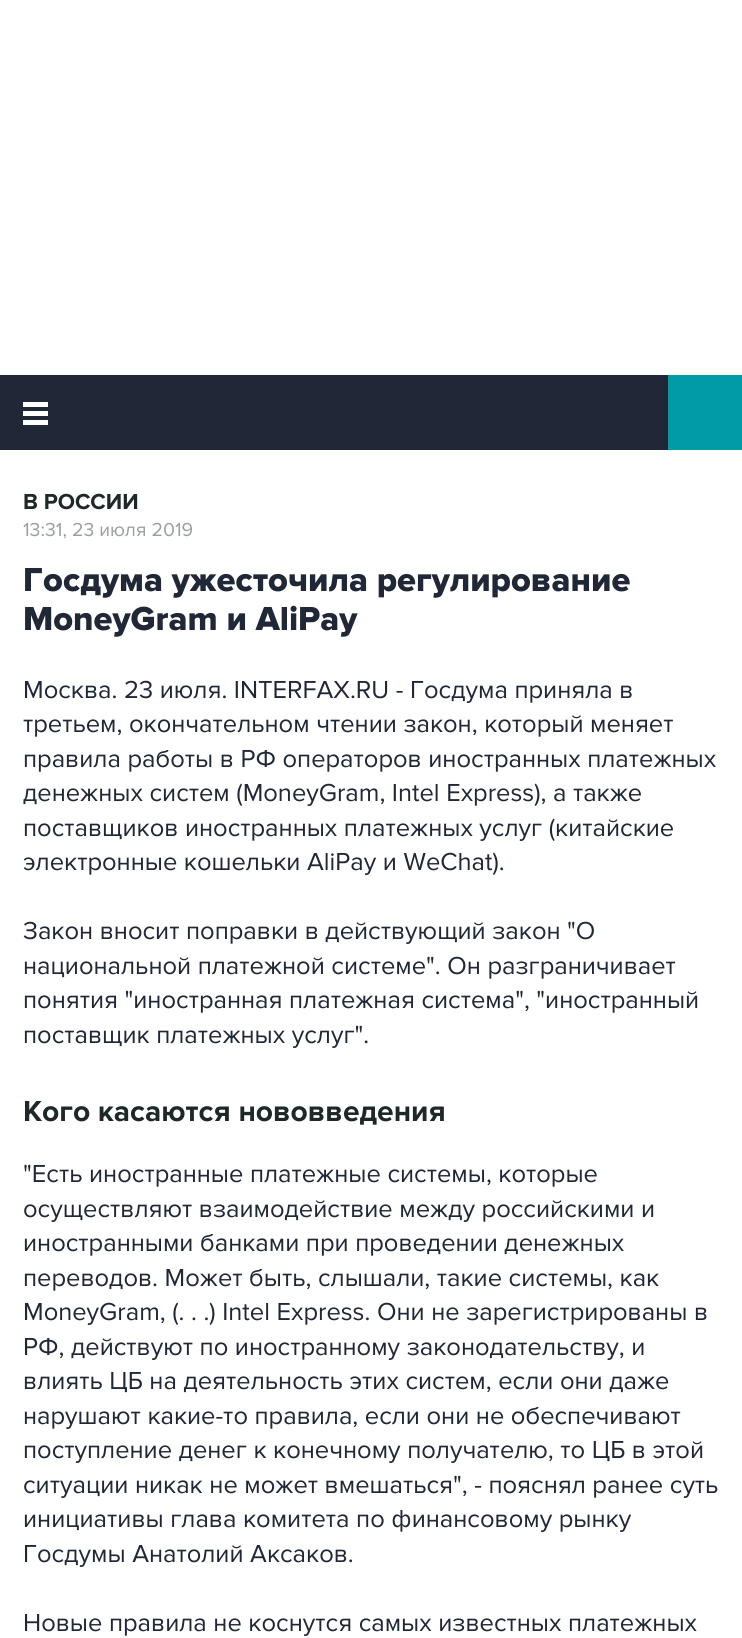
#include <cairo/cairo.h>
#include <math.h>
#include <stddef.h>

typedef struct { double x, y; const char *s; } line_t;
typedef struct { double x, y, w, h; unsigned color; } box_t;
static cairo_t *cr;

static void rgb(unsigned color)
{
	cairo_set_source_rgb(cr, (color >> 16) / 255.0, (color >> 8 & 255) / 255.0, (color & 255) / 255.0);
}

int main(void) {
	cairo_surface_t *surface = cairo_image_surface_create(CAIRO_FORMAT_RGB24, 742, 1638);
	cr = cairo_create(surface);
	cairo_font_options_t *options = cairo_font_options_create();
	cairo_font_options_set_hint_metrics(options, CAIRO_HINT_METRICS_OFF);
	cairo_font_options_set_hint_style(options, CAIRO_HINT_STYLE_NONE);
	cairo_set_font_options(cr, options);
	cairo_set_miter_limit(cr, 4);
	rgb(0xffffff);
	cairo_paint(cr);
	{
		static const box_t items[] = {
			{0, 375, 668, 75, 0x202736},
			{23, 402, 25, 5, 0xffffff},
			{23, 411, 25, 5, 0xffffff},
			{23, 420, 25, 5, 0xffffff},
			{668, 375, 74, 75, 0x009ca6},
		};
		for (size_t i = 0; i < sizeof items / sizeof *items; i++) {
			rgb(items[i].color);
			cairo_rectangle(cr, items[i].x, items[i].y, items[i].w, items[i].h);
			cairo_fill(cr);
		}
	}
	cairo_select_font_face(cr, "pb", CAIRO_FONT_SLANT_NORMAL, CAIRO_FONT_WEIGHT_BOLD);
	cairo_set_font_size(cr, 22.5);
	rgb(0x1f2829);
	cairo_move_to(cr, 23, 509);
	cairo_show_text(cr, "В РОССИИ");
	cairo_select_font_face(cr, "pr", CAIRO_FONT_SLANT_NORMAL, CAIRO_FONT_WEIGHT_NORMAL);
	cairo_set_font_size(cr, 19.5);
	rgb(0x9b9f9f);
	cairo_move_to(cr, 23, 536);
	cairo_show_text(cr, "13:31, 23 июля 2019");
	cairo_select_font_face(cr, "Proxima Nova ExtraBold", CAIRO_FONT_SLANT_NORMAL, CAIRO_FONT_WEIGHT_NORMAL);
	cairo_set_font_size(cr, 34.5);
	rgb(0x202736);
	cairo_move_to(cr, 23, 591);
	cairo_show_text(cr, "Госдума ужесточила регулирование");
	cairo_move_to(cr, 23, 630);
	cairo_show_text(cr, "MoneyGram и AliPay");
	cairo_select_font_face(cr, "pr", CAIRO_FONT_SLANT_NORMAL, CAIRO_FONT_WEIGHT_NORMAL);
	cairo_set_font_size(cr, 25.5);
	{
		static const line_t items[] = {
			{23, 698, "Москва. 23 июля. INTERFAX.RU - Госдума приняла в"},
			{23, 732, "третьем, окончательном чтении закон, который меняет"},
			{23, 767, "правила работы в РФ операторов иностранных платежных"},
			{23, 801, "денежных систем (MoneyGram, Intel Express), а также"},
			{23, 836, "поставщиков иностранных платежных услуг (китайские"},
			{23, 870, "электронные кошельки AliPay и WeChat)."},
			{23, 939, "Закон вносит поправки в действующий закон \"О"},
			{23, 974, "национальной платежной системе\". Он разграничивает"},
			{23, 1008, "понятия \"иностранная платежная система\", \"иностранный"},
			{23, 1043, "поставщик платежных услуг\"."},
		};
		for (size_t i = 0; i < sizeof items / sizeof *items; i++) {
			cairo_move_to(cr, items[i].x, items[i].y);
			cairo_show_text(cr, items[i].s);
		}
	}
	cairo_select_font_face(cr, "pb", CAIRO_FONT_SLANT_NORMAL, CAIRO_FONT_WEIGHT_BOLD);
	cairo_set_font_size(cr, 30);
	rgb(0x1f2829);
	cairo_move_to(cr, 23, 1121);
	cairo_show_text(cr, "Кого касаются нововведения");
	cairo_select_font_face(cr, "pr", CAIRO_FONT_SLANT_NORMAL, CAIRO_FONT_WEIGHT_NORMAL);
	cairo_set_font_size(cr, 25.5);
	rgb(0x202736);
	{
		static const line_t items[] = {
			{23, 1182, "\"Есть иностранные платежные системы, которые"},
			{23, 1217, "осуществляют взаимодействие между российскими и"},
			{23, 1251, "иностранными банками при проведении денежных"},
			{23, 1286, "переводов. Может быть, слышали, такие системы, как"},
			{23, 1320, "MoneyGram, (. . .) Intel Express. Они не зарегистрированы в"},
			{23, 1355, "РФ, действуют по иностранному законодательству, и"},
			{23, 1389, "влиять ЦБ на деятельность этих систем, если они даже"},
			{23, 1424, "нарушают какие-то правила, если они не обеспечивают"},
			{23, 1458, "поступление денег к конечному получателю, то ЦБ в этой"},
			{23, 1493, "ситуации никак не может вмешаться\", - пояснял ранее суть"},
			{23, 1527, "инициативы глава комитета по финансовому рынку"},
			{23, 1562, "Госдумы Анатолий Аксаков."},
			{23, 1631, "Новые правила не коснутся самых известных платежных"},
		};
		for (size_t i = 0; i < sizeof items / sizeof *items; i++) {
			cairo_move_to(cr, items[i].x, items[i].y);
			cairo_show_text(cr, items[i].s);
		}
	}
	cairo_surface_write_to_png(surface, "page.png");
	cairo_font_options_destroy(options);
	cairo_destroy(cr);
	cairo_surface_destroy(surface);
	return 0;
}
